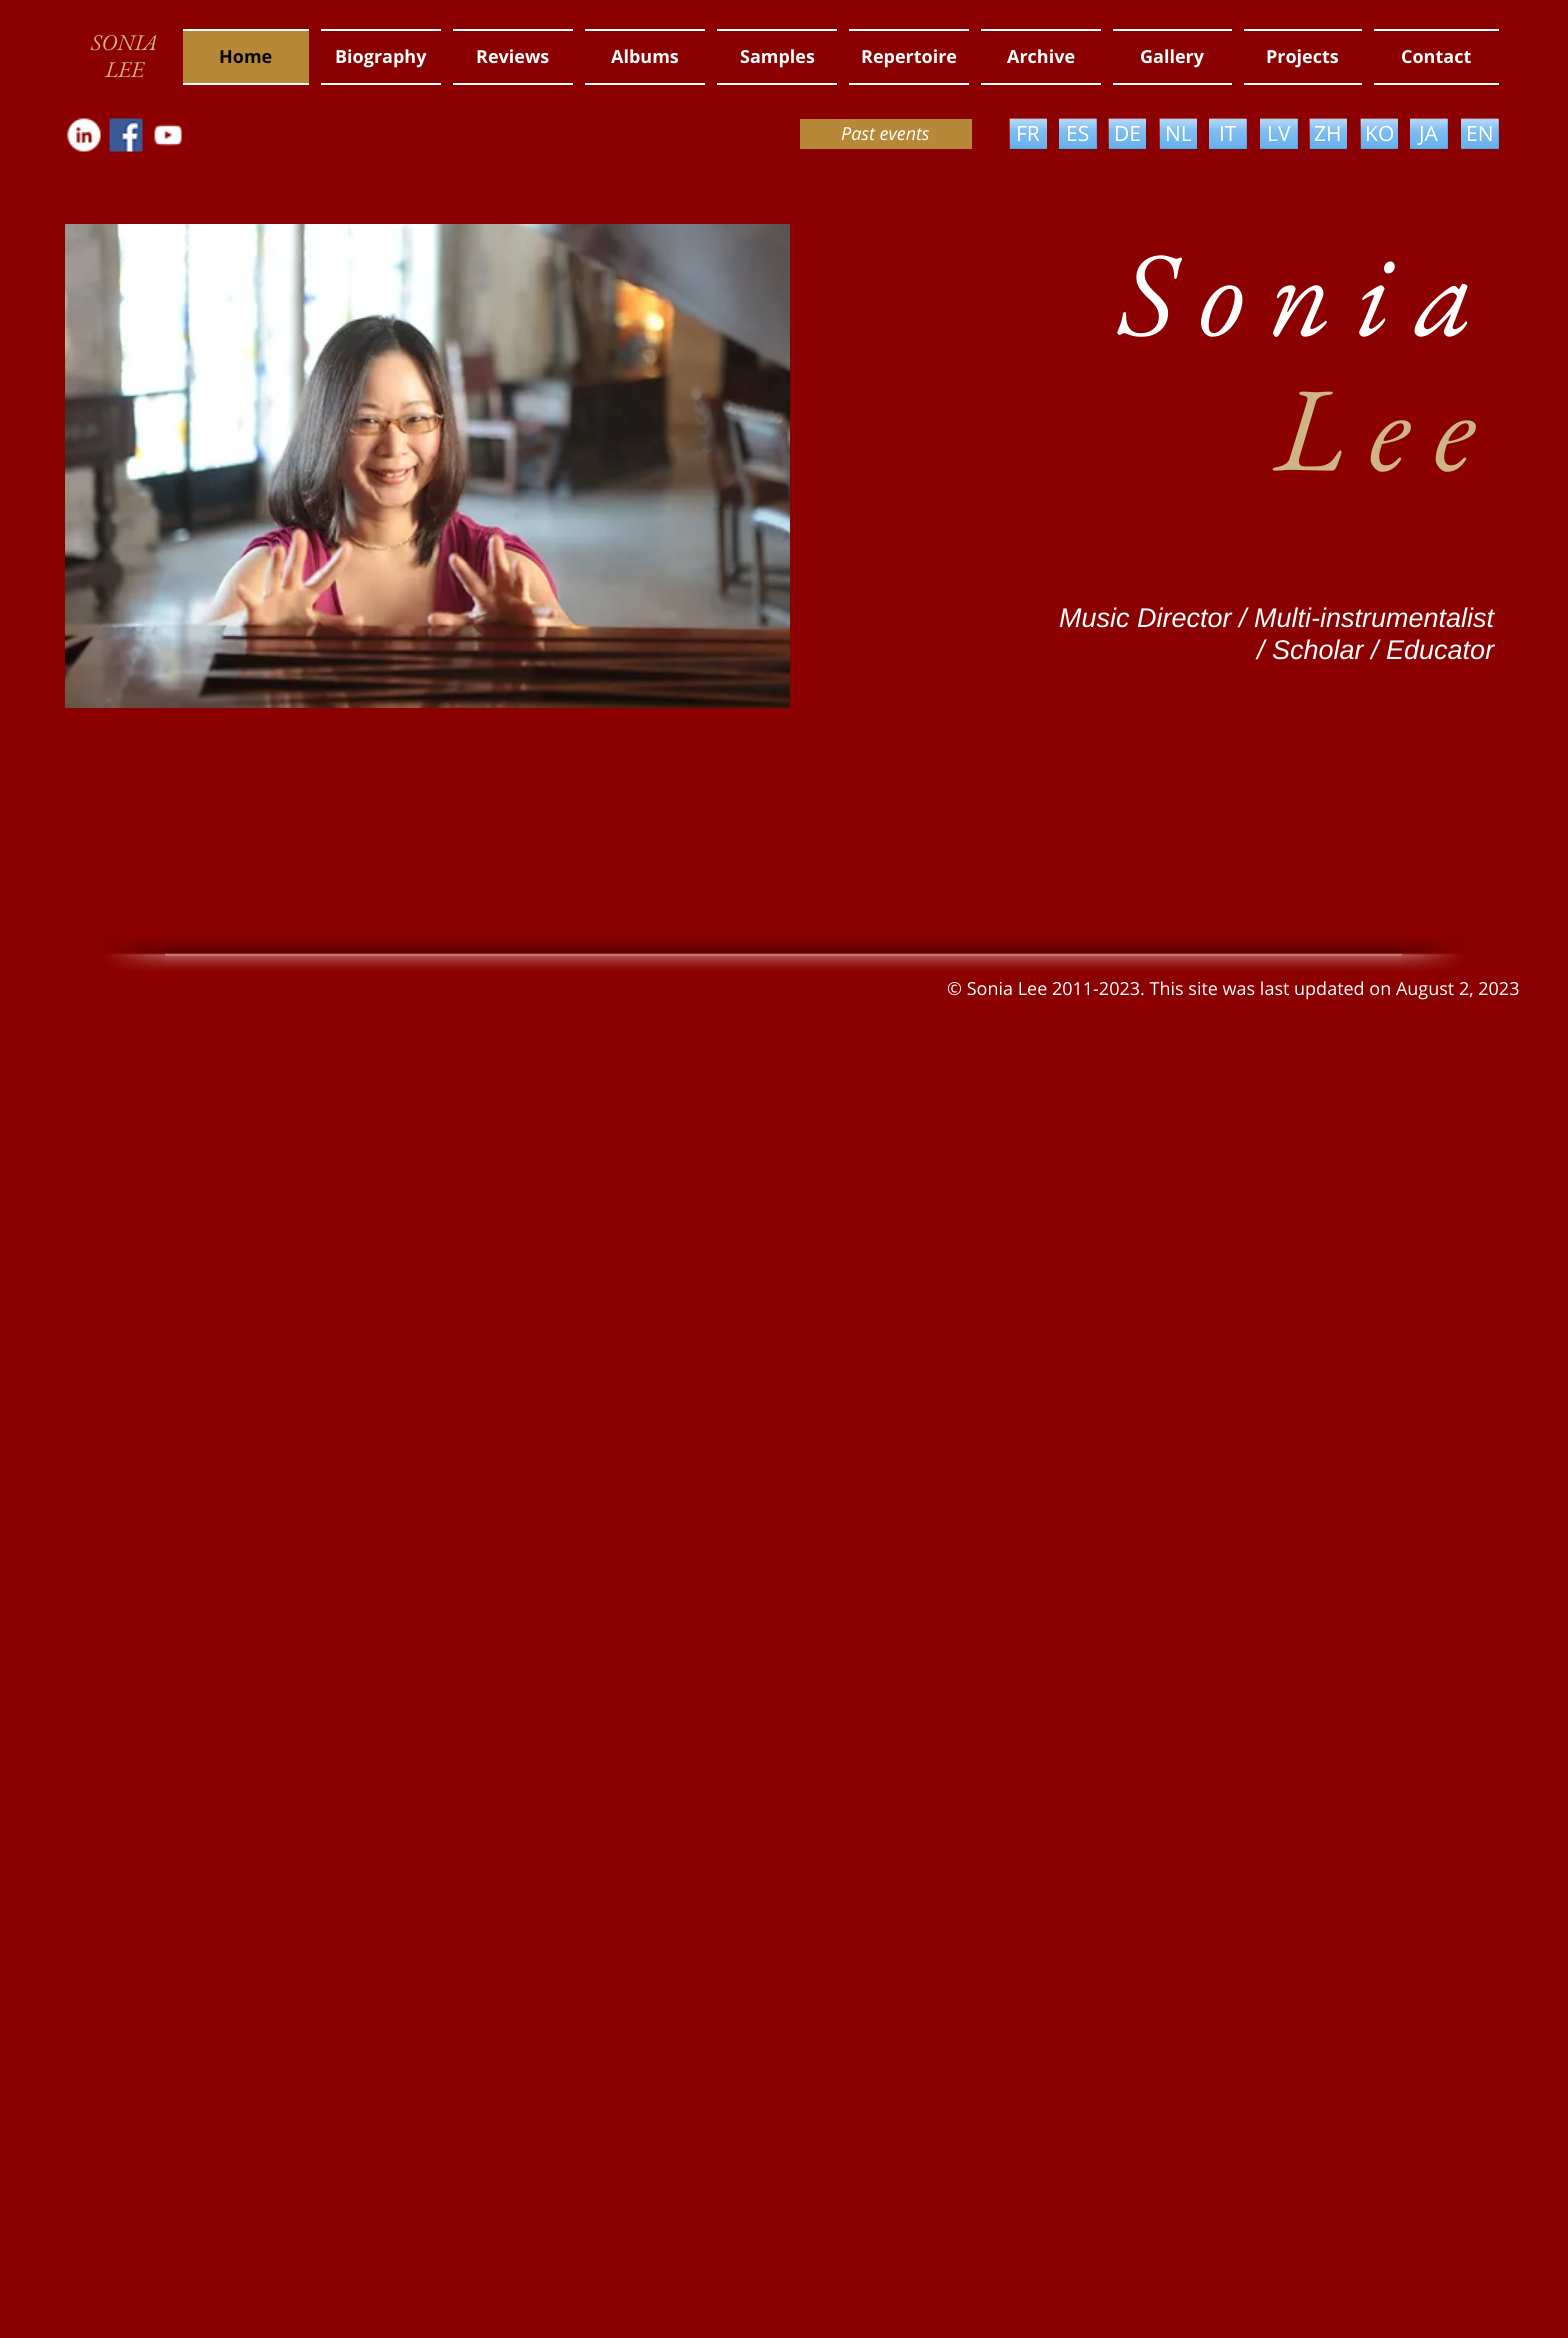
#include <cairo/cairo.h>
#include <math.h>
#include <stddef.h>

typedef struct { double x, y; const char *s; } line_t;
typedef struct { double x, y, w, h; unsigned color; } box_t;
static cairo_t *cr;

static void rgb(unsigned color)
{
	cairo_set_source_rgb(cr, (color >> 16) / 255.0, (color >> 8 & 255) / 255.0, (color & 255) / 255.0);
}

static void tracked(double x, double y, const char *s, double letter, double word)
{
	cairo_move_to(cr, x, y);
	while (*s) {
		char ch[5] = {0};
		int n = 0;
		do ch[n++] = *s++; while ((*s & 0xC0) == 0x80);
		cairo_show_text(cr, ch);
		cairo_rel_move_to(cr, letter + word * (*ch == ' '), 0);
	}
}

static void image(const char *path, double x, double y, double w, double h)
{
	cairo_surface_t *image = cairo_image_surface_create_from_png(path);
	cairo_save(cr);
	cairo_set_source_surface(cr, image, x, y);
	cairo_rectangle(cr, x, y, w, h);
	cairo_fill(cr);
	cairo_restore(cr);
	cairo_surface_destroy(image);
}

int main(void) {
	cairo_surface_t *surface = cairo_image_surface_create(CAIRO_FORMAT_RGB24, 1568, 2338);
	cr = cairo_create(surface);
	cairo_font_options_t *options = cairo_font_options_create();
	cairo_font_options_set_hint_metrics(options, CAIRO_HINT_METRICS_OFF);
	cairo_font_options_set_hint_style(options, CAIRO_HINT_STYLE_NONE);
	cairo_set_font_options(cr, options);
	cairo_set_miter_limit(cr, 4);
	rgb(0x8b0000);
	cairo_paint(cr);
	{
		static const box_t items[] = {
			{183, 31, 126, 52, 0xb78837},
			{183, 29, 126, 2, 0xffffff},
			{183, 83, 126, 2, 0xffffff},
			{321, 29, 120, 2, 0xffffff},
			{321, 83, 120, 2, 0xffffff},
			{453, 29, 120, 2, 0xffffff},
			{453, 83, 120, 2, 0xffffff},
			{585, 29, 120, 2, 0xffffff},
			{585, 83, 120, 2, 0xffffff},
			{717, 29, 120, 2, 0xffffff},
			{717, 83, 120, 2, 0xffffff},
			{849, 29, 120, 2, 0xffffff},
			{849, 83, 120, 2, 0xffffff},
			{981, 29, 120, 2, 0xffffff},
			{981, 83, 120, 2, 0xffffff},
			{1113, 29, 119, 2, 0xffffff},
			{1113, 83, 119, 2, 0xffffff},
			{1244, 29, 118, 2, 0xffffff},
			{1244, 83, 118, 2, 0xffffff},
			{1374, 29, 125, 2, 0xffffff},
			{1374, 83, 125, 2, 0xffffff},
		};
		for (size_t i = 0; i < sizeof items / sizeof *items; i++) {
			rgb(items[i].color);
			cairo_rectangle(cr, items[i].x, items[i].y, items[i].w, items[i].h);
			cairo_fill(cr);
		}
	}
	image("img/1.png", 67, 118, 34, 34);
	image("img/2.png", 109, 118, 34, 34);
	image("img/3.png", 154, 124, 29, 22);
	rgb(0xb78837);
	cairo_rectangle(cr, 800, 119, 172, 30);
	cairo_fill(cr);
	rgb(0x3d9be9);
	cairo_rectangle(cr, 1010, 119, 37, 30);
	cairo_fill(cr);
	image("img/4.png", 1009, 118, 38, 31);
	cairo_rectangle(cr, 1059, 119, 38, 30);
	cairo_fill(cr);
	image("img/5.png", 1059, 118, 38, 31);
	cairo_rectangle(cr, 1109, 119, 37, 30);
	cairo_fill(cr);
	image("img/4.png", 1108, 118, 38, 31);
	cairo_rectangle(cr, 1160, 119, 37, 30);
	cairo_fill(cr);
	image("img/4.png", 1159, 118, 38, 31);
	cairo_rectangle(cr, 1209, 119, 38, 30);
	cairo_fill(cr);
	image("img/5.png", 1209, 118, 38, 31);
	cairo_rectangle(cr, 1260, 119, 38, 30);
	cairo_fill(cr);
	image("img/5.png", 1260, 118, 38, 31);
	cairo_rectangle(cr, 1310, 119, 37, 30);
	cairo_fill(cr);
	image("img/4.png", 1309, 118, 38, 31);
	cairo_rectangle(cr, 1361, 119, 37, 30);
	cairo_fill(cr);
	image("img/4.png", 1360, 118, 38, 31);
	cairo_rectangle(cr, 1410, 119, 38, 30);
	cairo_fill(cr);
	image("img/5.png", 1410, 118, 38, 31);
	cairo_rectangle(cr, 1461, 119, 38, 30);
	cairo_fill(cr);
	image("img/5.png", 1461, 118, 38, 31);
	image("img/6.png", 65, 224, 726, 484);
	image("img/7.png", 165, 936, 1238, 35);
	image("img/8.png", 103, 937, 62, 34);
	image("img/9.png", 1402, 937, 63, 34);
	cairo_select_font_face(cr, "EB Garamond", CAIRO_FONT_SLANT_ITALIC, CAIRO_FONT_WEIGHT_NORMAL);
	cairo_set_font_size(cr, 22.5);
	rgb(0xcfb486);
	cairo_move_to(cr, 91, 50);
	cairo_show_text(cr, "SONIA");
	cairo_move_to(cr, 105, 77);
	cairo_show_text(cr, "LEE");
	cairo_select_font_face(cr, "Open Sans", CAIRO_FONT_SLANT_NORMAL, CAIRO_FONT_WEIGHT_BOLD);
	cairo_set_font_size(cr, 18);
	rgb(0x070606);
	cairo_move_to(cr, 219, 63);
	cairo_show_text(cr, "Home");
	rgb(0xffffff);
	{
		static const line_t items[] = {
			{335, 63, "Biography"},
			{476, 63, "Reviews"},
			{611, 63, "Albums"},
			{740, 63, "Samples"},
			{861, 63, "Repertoire"},
			{1007, 63, "Archive"},
			{1140, 63, "Gallery"},
			{1266, 63, "Projects"},
			{1401, 63, "Contact"},
		};
		for (size_t i = 0; i < sizeof items / sizeof *items; i++) {
			cairo_move_to(cr, items[i].x, items[i].y);
			cairo_show_text(cr, items[i].s);
		}
	}
	cairo_select_font_face(cr, "Open Sans", CAIRO_FONT_SLANT_ITALIC, CAIRO_FONT_WEIGHT_NORMAL);
	cairo_move_to(cr, 841, 140);
	cairo_show_text(cr, "Past events");
	cairo_select_font_face(cr, "Open Sans", CAIRO_FONT_SLANT_NORMAL, CAIRO_FONT_WEIGHT_NORMAL);
	cairo_set_font_size(cr, 21);
	{
		static const line_t items[] = {
			{1016, 141, "FR"},
			{1066, 141, "ES"},
			{1114, 141, "DE"},
			{1165, 141, "NL"},
			{1219, 141, "IT"},
			{1267, 141, "LV"},
			{1314, 141, "ZH"},
			{1365, 141, "KO"},
			{1419, 141, "JA"},
			{1466, 141, "EN"},
		};
		for (size_t i = 0; i < sizeof items / sizeof *items; i++) {
			cairo_move_to(cr, items[i].x, items[i].y);
			cairo_show_text(cr, items[i].s);
		}
	}
	cairo_select_font_face(cr, "EB Garamond", CAIRO_FONT_SLANT_ITALIC, CAIRO_FONT_WEIGHT_NORMAL);
	cairo_set_font_size(cr, 120);
	tracked(1119, 335, "Sonia", 24, 0);
	rgb(0xcfb486);
	tracked(1275, 470, "Lee", 24, 0);
	cairo_select_font_face(cr, "Liberation Sans", CAIRO_FONT_SLANT_ITALIC, CAIRO_FONT_WEIGHT_NORMAL);
	cairo_set_font_size(cr, 27);
	rgb(0xffffff);
	cairo_move_to(cr, 1059, 627);
	cairo_show_text(cr, "Music Director / Multi-instrumentalist");
	cairo_move_to(cr, 1257, 659);
	cairo_show_text(cr, "/ Scholar / Educator");
	cairo_select_font_face(cr, "Open Sans", CAIRO_FONT_SLANT_NORMAL, CAIRO_FONT_WEIGHT_NORMAL);
	cairo_set_font_size(cr, 18);
	cairo_move_to(cr, 947, 995);
	cairo_show_text(cr, "© Sonia Lee 2011-2023. This site was last updated on August 2, 2023");
	cairo_surface_write_to_png(surface, "page.png");
	cairo_font_options_destroy(options);
	cairo_destroy(cr);
	cairo_surface_destroy(surface);
	return 0;
}
